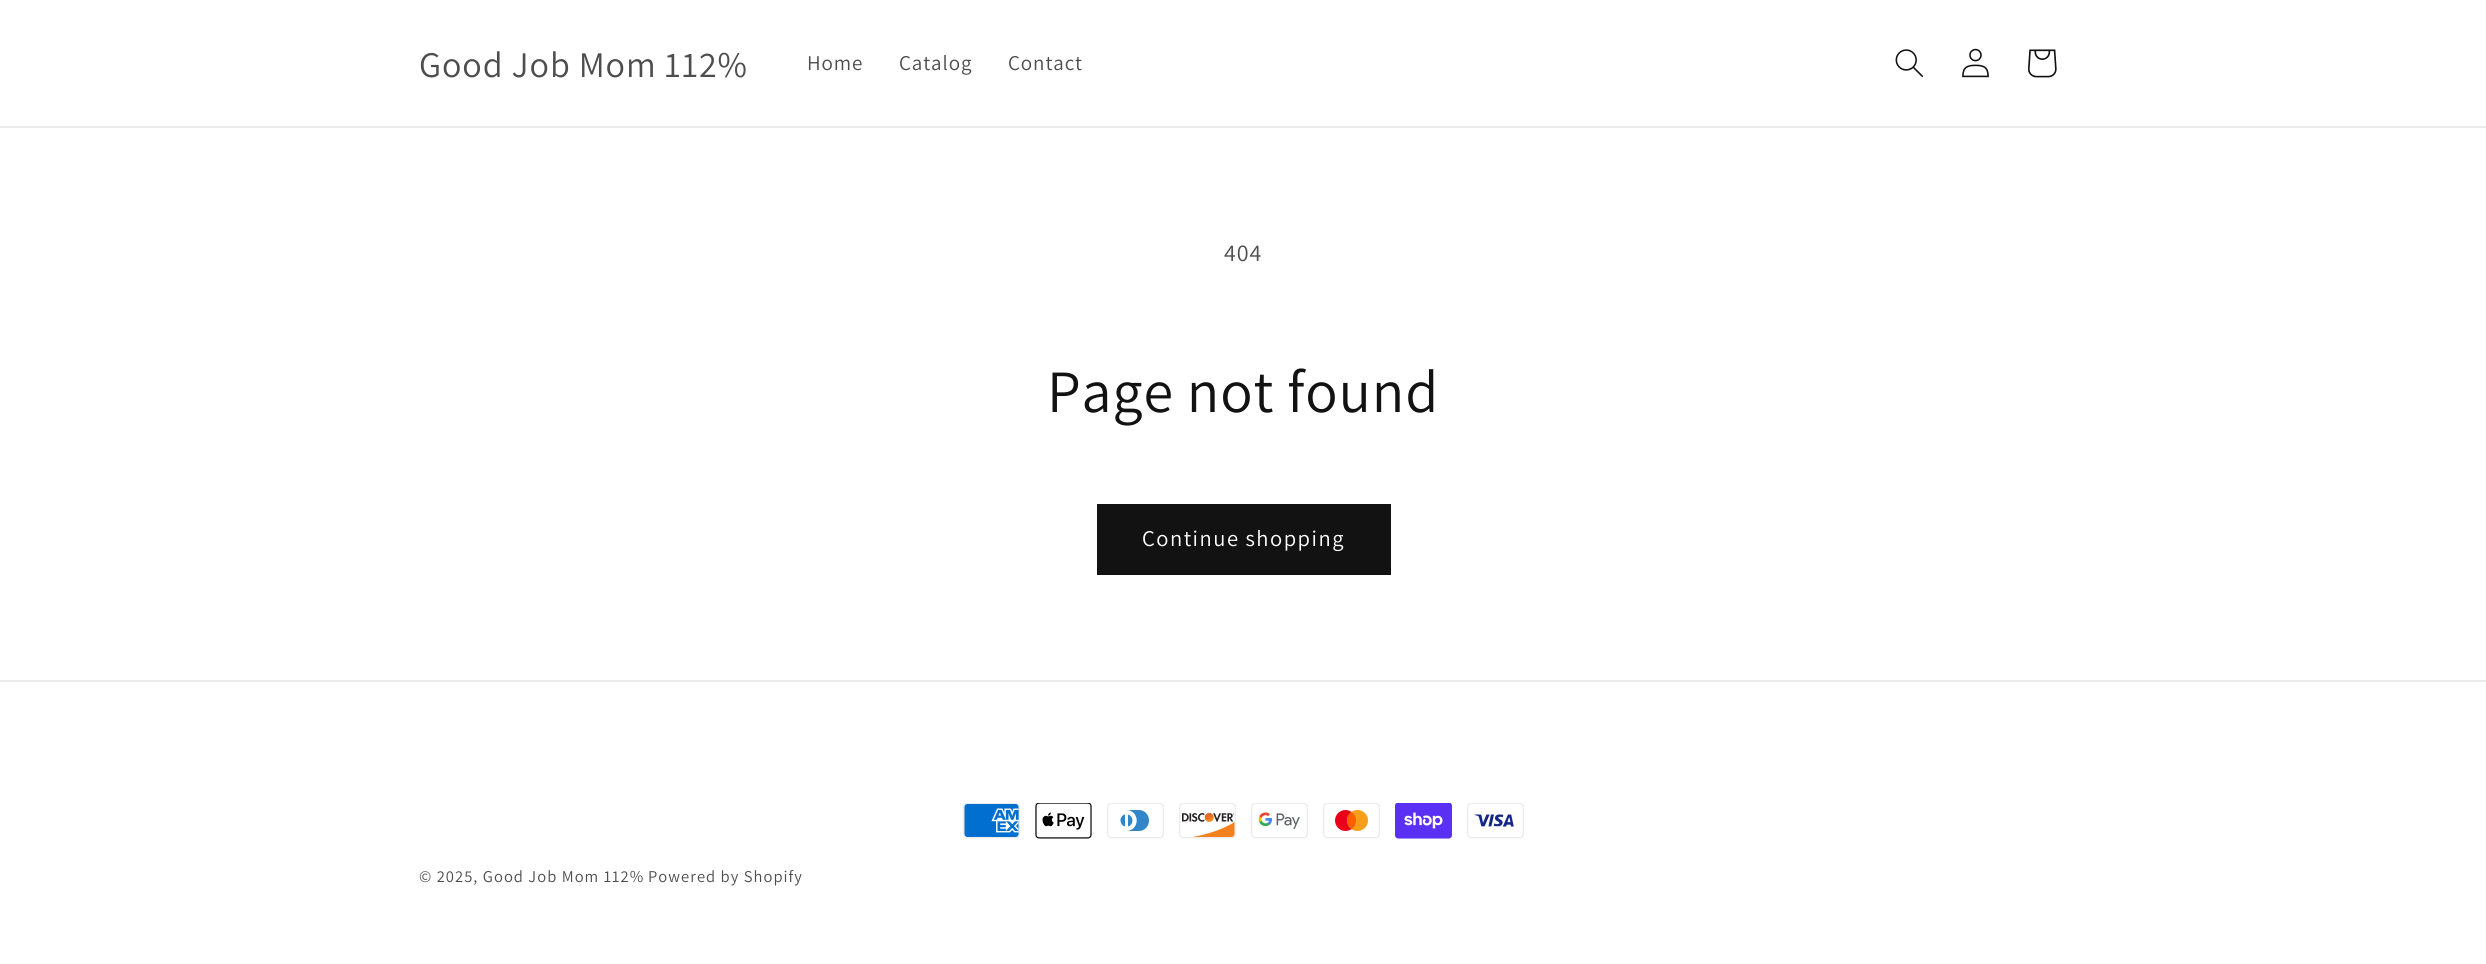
#include <cairo/cairo.h>
#include <math.h>
#include <stddef.h>

typedef struct { double x, y; const char *s; } line_t;
static cairo_t *cr;

static void rgb(unsigned color)
{
	cairo_set_source_rgb(cr, (color >> 16) / 255.0, (color >> 8 & 255) / 255.0, (color & 255) / 255.0);
}

static void tracked(double x, double y, const char *s, double letter, double word)
{
	cairo_move_to(cr, x, y);
	while (*s) {
		char ch[5] = {0};
		int n = 0;
		do ch[n++] = *s++; while ((*s & 0xC0) == 0x80);
		cairo_show_text(cr, ch);
		cairo_rel_move_to(cr, letter + word * (*ch == ' '), 0);
	}
}

static void image(const char *path, double x, double y, double w, double h)
{
	cairo_surface_t *image = cairo_image_surface_create_from_png(path);
	cairo_save(cr);
	cairo_set_source_surface(cr, image, x, y);
	cairo_rectangle(cr, x, y, w, h);
	cairo_fill(cr);
	cairo_restore(cr);
	cairo_surface_destroy(image);
}

int main(void) {
	cairo_surface_t *surface = cairo_image_surface_create(CAIRO_FORMAT_RGB24, 2486, 964);
	cr = cairo_create(surface);
	cairo_font_options_t *options = cairo_font_options_create();
	cairo_font_options_set_hint_metrics(options, CAIRO_HINT_METRICS_OFF);
	cairo_font_options_set_hint_style(options, CAIRO_HINT_STYLE_NONE);
	cairo_set_font_options(cr, options);
	cairo_set_miter_limit(cr, 4);
	rgb(0xffffff);
	cairo_paint(cr);
	rgb(0xececec);
	cairo_rectangle(cr, 0, 126, 2486, 2);
	cairo_fill(cr);
	image("img/1.png", 1895, 49, 28, 28);
	image("img/2.png", 1962, 48, 27, 30);
	image("img/3.png", 2028, 49, 29, 29);
	rgb(0x121212);
	cairo_rectangle(cr, 1097, 504, 294, 71);
	cairo_fill(cr);
	rgb(0xececec);
	cairo_rectangle(cr, 0, 680, 2486, 2);
	cairo_fill(cr);
	image("img/4.png", 963, 803, 57, 36);
	image("img/5.png", 1035, 803, 57, 36);
	image("img/6.png", 1107, 803, 57, 36);
	image("img/7.png", 1179, 803, 57, 36);
	image("img/8.png", 1251, 803, 57, 36);
	image("img/9.png", 1323, 803, 57, 36);
	image("img/10.png", 1395, 803, 57, 36);
	image("img/11.png", 1467, 803, 57, 36);
	cairo_select_font_face(cr, "Assistant", CAIRO_FONT_SLANT_NORMAL, CAIRO_FONT_WEIGHT_NORMAL);
	cairo_set_font_size(cr, 36);
	rgb(0x4d4d4d);
	tracked(419, 77, "Good Job Mom 112%", 0.9, 0);
	cairo_set_font_size(cr, 21);
	{
		static const line_t items[] = {
			{807, 70, "Home"},
			{899, 70, "Catalog"},
			{1008, 70, "Contact"},
		};
		for (size_t i = 0; i < sizeof items / sizeof *items; i++) {
			tracked(items[i].x, items[i].y, items[i].s, 0.9, 0);
		}
	}
	cairo_set_font_size(cr, 24);
	tracked(1224, 261, "404", 0.9, 0);
	cairo_set_font_size(cr, 60);
	rgb(0x121212);
	tracked(1047, 412, "Page not found", 0.9, 0);
	cairo_set_font_size(cr, 22.5);
	rgb(0xffffff);
	tracked(1142, 546, "Continue shopping", 1.5, 0);
	cairo_set_font_size(cr, 16.5);
	rgb(0x4d4d4d);
	tracked(419, 882, "© 2025, Good Job Mom 112%", 1.05, 0);
	tracked(648, 882, "Powered by Shopify", 1.05, 0);
	cairo_surface_write_to_png(surface, "page.png");
	cairo_font_options_destroy(options);
	cairo_destroy(cr);
	cairo_surface_destroy(surface);
	return 0;
}
